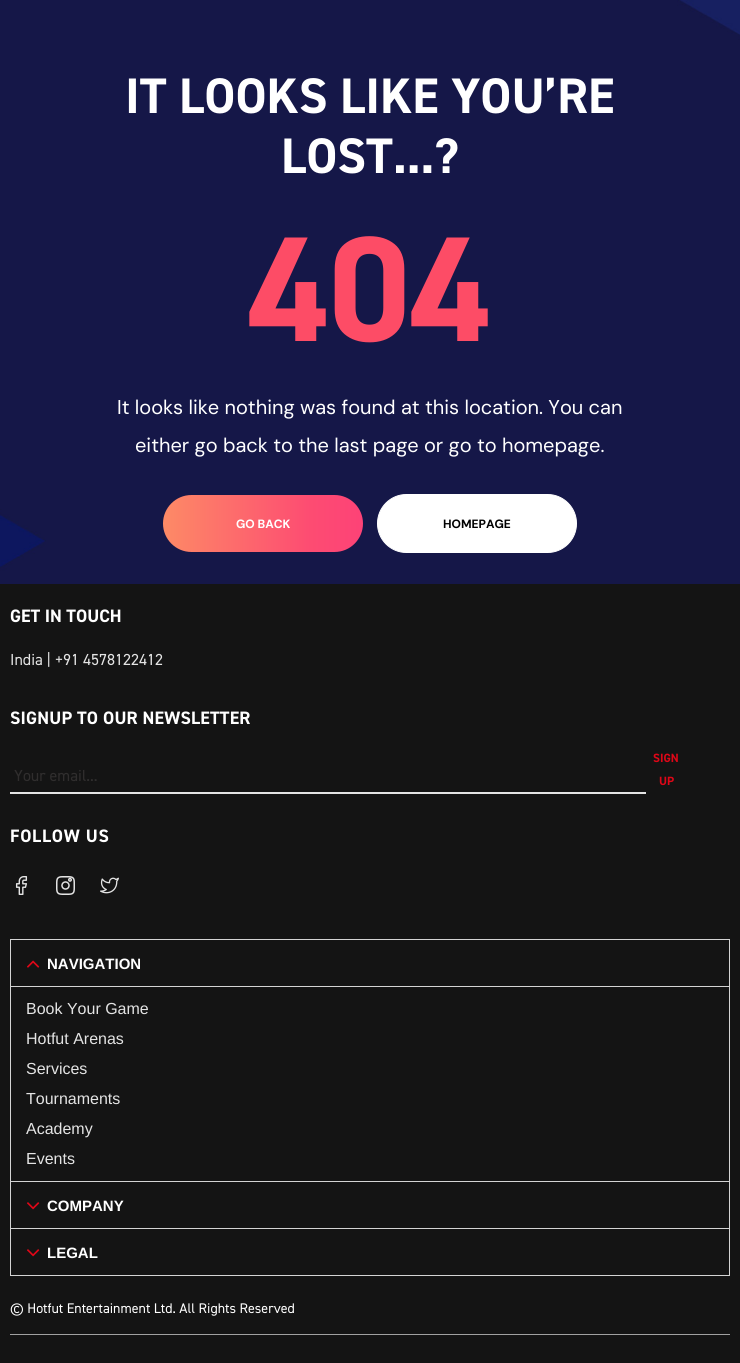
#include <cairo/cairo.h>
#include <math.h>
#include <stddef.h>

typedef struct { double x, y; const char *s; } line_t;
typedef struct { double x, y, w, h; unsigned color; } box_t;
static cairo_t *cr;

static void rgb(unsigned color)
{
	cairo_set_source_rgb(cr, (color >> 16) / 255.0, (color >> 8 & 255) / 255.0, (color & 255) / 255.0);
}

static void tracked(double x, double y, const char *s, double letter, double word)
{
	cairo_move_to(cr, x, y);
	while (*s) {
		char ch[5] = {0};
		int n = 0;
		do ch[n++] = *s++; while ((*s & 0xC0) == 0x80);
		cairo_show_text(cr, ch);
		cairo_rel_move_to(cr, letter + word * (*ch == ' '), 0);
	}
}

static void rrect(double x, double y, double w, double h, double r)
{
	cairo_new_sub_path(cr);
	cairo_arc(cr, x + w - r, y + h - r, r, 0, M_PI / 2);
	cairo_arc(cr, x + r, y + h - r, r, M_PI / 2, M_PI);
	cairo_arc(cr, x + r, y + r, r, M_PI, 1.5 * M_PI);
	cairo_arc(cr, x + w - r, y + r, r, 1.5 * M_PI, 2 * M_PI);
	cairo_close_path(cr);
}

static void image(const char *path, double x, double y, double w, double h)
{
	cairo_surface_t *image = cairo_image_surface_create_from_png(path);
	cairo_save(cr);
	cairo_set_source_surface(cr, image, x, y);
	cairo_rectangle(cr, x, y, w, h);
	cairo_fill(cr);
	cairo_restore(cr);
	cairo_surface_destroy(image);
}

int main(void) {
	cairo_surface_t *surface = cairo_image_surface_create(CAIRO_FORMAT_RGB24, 740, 1363);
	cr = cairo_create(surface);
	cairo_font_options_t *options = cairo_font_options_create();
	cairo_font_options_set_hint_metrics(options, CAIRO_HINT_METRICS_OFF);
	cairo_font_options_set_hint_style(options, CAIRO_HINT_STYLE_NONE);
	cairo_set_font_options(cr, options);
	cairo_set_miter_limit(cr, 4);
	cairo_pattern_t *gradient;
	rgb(0xffffff);
	cairo_paint(cr);
	image("img/1.png", 0, 0, 740, 584);
	gradient = cairo_pattern_create_linear(163, 524, 463, 524);
	cairo_pattern_add_color_stop_rgba(gradient, 0, 0.992, 0.541, 0.4, 1);
	cairo_pattern_add_color_stop_rgba(gradient, 0.49, 0.992, 0.298, 0.447, 1);
	cairo_pattern_add_color_stop_rgba(gradient, 0.85, 0.992, 0.22, 0.486, 1);
	cairo_pattern_add_color_stop_rgba(gradient, 1, 0.992, 0.137, 0.518, 1);
	cairo_set_source(cr, gradient);
	cairo_pattern_destroy(gradient);
	rrect(163, 495, 200, 57, 28.5);
	cairo_fill(cr);
	rgb(0xffffff);
	rrect(377.5, 494.5, 199, 58, 29);
	cairo_fill_preserve(cr);
	cairo_set_line_width(cr, 1);
	cairo_stroke(cr);
	rgb(0x141414);
	cairo_rectangle(cr, 0, 584, 740, 779);
	cairo_fill(cr);
	rgb(0xe4e4e4);
	cairo_rectangle(cr, 10, 792, 636, 2);
	cairo_fill(cr);
	image("img/2.png", 15, 876, 13, 19);
	image("img/3.png", 56, 876, 19, 19);
	image("img/4.png", 100, 877, 19, 17);
	cairo_rectangle(cr, 10.5, 939.5, 719, 242);
	rgb(0xd4d4d4);
	cairo_stroke(cr);
	image("img/5.png", 27, 960, 13, 8);
	{
		static const box_t items[] = {
			{11, 986, 718, 1, 0xd4d4d4},
			{729, 1182, 1, 94, 0xd4d4d4},
			{10, 1228, 720, 1, 0xd4d4d4},
			{10, 1182, 1, 47, 0xd4d4d4},
		};
		for (size_t i = 0; i < sizeof items / sizeof *items; i++) {
			rgb(items[i].color);
			cairo_rectangle(cr, items[i].x, items[i].y, items[i].w, items[i].h);
			cairo_fill(cr);
		}
	}
	image("img/6.png", 27, 1202, 13, 8);
	cairo_rectangle(cr, 10, 1275, 720, 1);
	cairo_fill(cr);
	cairo_rectangle(cr, 10, 1229, 1, 47);
	cairo_fill(cr);
	image("img/6.png", 27, 1249, 13, 8);
	rgb(0xa1a1a1);
	cairo_rectangle(cr, 10, 1334, 720, 1);
	cairo_fill(cr);
	cairo_select_font_face(cr, "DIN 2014", CAIRO_FONT_SLANT_NORMAL, CAIRO_FONT_WEIGHT_BOLD);
	cairo_set_font_size(cr, 50);
	rgb(0xffffff);
	cairo_move_to(cr, 125, 113);
	cairo_show_text(cr, "IT LOOKS LIKE YOU’RE");
	cairo_move_to(cr, 281, 173);
	cairo_show_text(cr, "LOST...?");
	cairo_set_font_size(cr, 150);
	rgb(0xfd4c66);
	cairo_move_to(cr, 248, 341);
	cairo_show_text(cr, "404");
	cairo_select_font_face(cr, "DM Sans", CAIRO_FONT_SLANT_NORMAL, CAIRO_FONT_WEIGHT_NORMAL);
	cairo_set_font_size(cr, 20);
	rgb(0xffffff);
	cairo_move_to(cr, 117, 414);
	cairo_show_text(cr, "It looks like nothing was found at this location. You can");
	cairo_move_to(cr, 135, 452);
	cairo_show_text(cr, "either go back to the last page or go to homepage.");
	cairo_select_font_face(cr, "DM Sans", CAIRO_FONT_SLANT_NORMAL, CAIRO_FONT_WEIGHT_BOLD);
	cairo_set_font_size(cr, 12);
	cairo_move_to(cr, 236, 528);
	cairo_show_text(cr, "GO BACK");
	rgb(0x000000);
	cairo_move_to(cr, 443, 528);
	cairo_show_text(cr, "HOMEPAGE");
	cairo_select_font_face(cr, "DIN 2014", CAIRO_FONT_SLANT_NORMAL, CAIRO_FONT_WEIGHT_BOLD);
	cairo_set_font_size(cr, 18);
	rgb(0xffffff);
	cairo_move_to(cr, 10, 622);
	cairo_show_text(cr, "GET IN TOUCH");
	cairo_select_font_face(cr, "DIN 2014", CAIRO_FONT_SLANT_NORMAL, CAIRO_FONT_WEIGHT_NORMAL);
	cairo_set_font_size(cr, 16);
	rgb(0xe4e4e4);
	cairo_move_to(cr, 10, 665);
	cairo_show_text(cr, "India | +91 4578122412");
	cairo_select_font_face(cr, "DIN 2014", CAIRO_FONT_SLANT_NORMAL, CAIRO_FONT_WEIGHT_BOLD);
	cairo_set_font_size(cr, 18);
	rgb(0xffffff);
	tracked(10, 724, "SIGNUP TO OUR NEWSLETTER", 0.2, 0);
	cairo_select_font_face(cr, "DIN 2014", CAIRO_FONT_SLANT_NORMAL, CAIRO_FONT_WEIGHT_NORMAL);
	cairo_set_font_size(cr, 16);
	rgb(0x302e2e);
	cairo_move_to(cr, 14, 781);
	cairo_show_text(cr, "Your email...");
	cairo_select_font_face(cr, "DIN 2014", CAIRO_FONT_SLANT_NORMAL, CAIRO_FONT_WEIGHT_BOLD);
	cairo_set_font_size(cr, 12);
	rgb(0xe00617);
	cairo_move_to(cr, 653, 762);
	cairo_show_text(cr, "SIGN");
	cairo_move_to(cr, 659, 785);
	cairo_show_text(cr, "UP");
	cairo_set_font_size(cr, 18);
	rgb(0xffffff);
	tracked(10, 842, "FOLLOW US", 0.75, 0);
	cairo_select_font_face(cr, "Liberation Sans", CAIRO_FONT_SLANT_NORMAL, CAIRO_FONT_WEIGHT_BOLD);
	cairo_set_font_size(cr, 15);
	cairo_move_to(cr, 47, 969);
	cairo_show_text(cr, "NAVIGATION");
	cairo_select_font_face(cr, "Liberation Sans", CAIRO_FONT_SLANT_NORMAL, CAIRO_FONT_WEIGHT_NORMAL);
	cairo_set_font_size(cr, 16);
	rgb(0xe4e4e4);
	{
		static const line_t items[] = {
			{26, 1014, "Book Your Game"},
			{26, 1044, "Hotfut Arenas"},
			{26, 1074, "Services"},
			{26, 1104, "Tournaments"},
			{26, 1134, "Academy"},
			{26, 1164, "Events"},
		};
		for (size_t i = 0; i < sizeof items / sizeof *items; i++) {
			cairo_move_to(cr, items[i].x, items[i].y);
			cairo_show_text(cr, items[i].s);
		}
	}
	cairo_select_font_face(cr, "Liberation Sans", CAIRO_FONT_SLANT_NORMAL, CAIRO_FONT_WEIGHT_BOLD);
	cairo_set_font_size(cr, 15);
	rgb(0xffffff);
	cairo_move_to(cr, 47, 1211);
	cairo_show_text(cr, "COMPANY");
	cairo_move_to(cr, 47, 1258);
	cairo_show_text(cr, "LEGAL");
	cairo_select_font_face(cr, "DIN 2014", CAIRO_FONT_SLANT_NORMAL, CAIRO_FONT_WEIGHT_NORMAL);
	cairo_set_font_size(cr, 14);
	cairo_move_to(cr, 10, 1313);
	cairo_show_text(cr, "© Hotfut Entertainment Ltd. All Rights Reserved");
	cairo_surface_write_to_png(surface, "page.png");
	cairo_font_options_destroy(options);
	cairo_destroy(cr);
	cairo_surface_destroy(surface);
	return 0;
}
